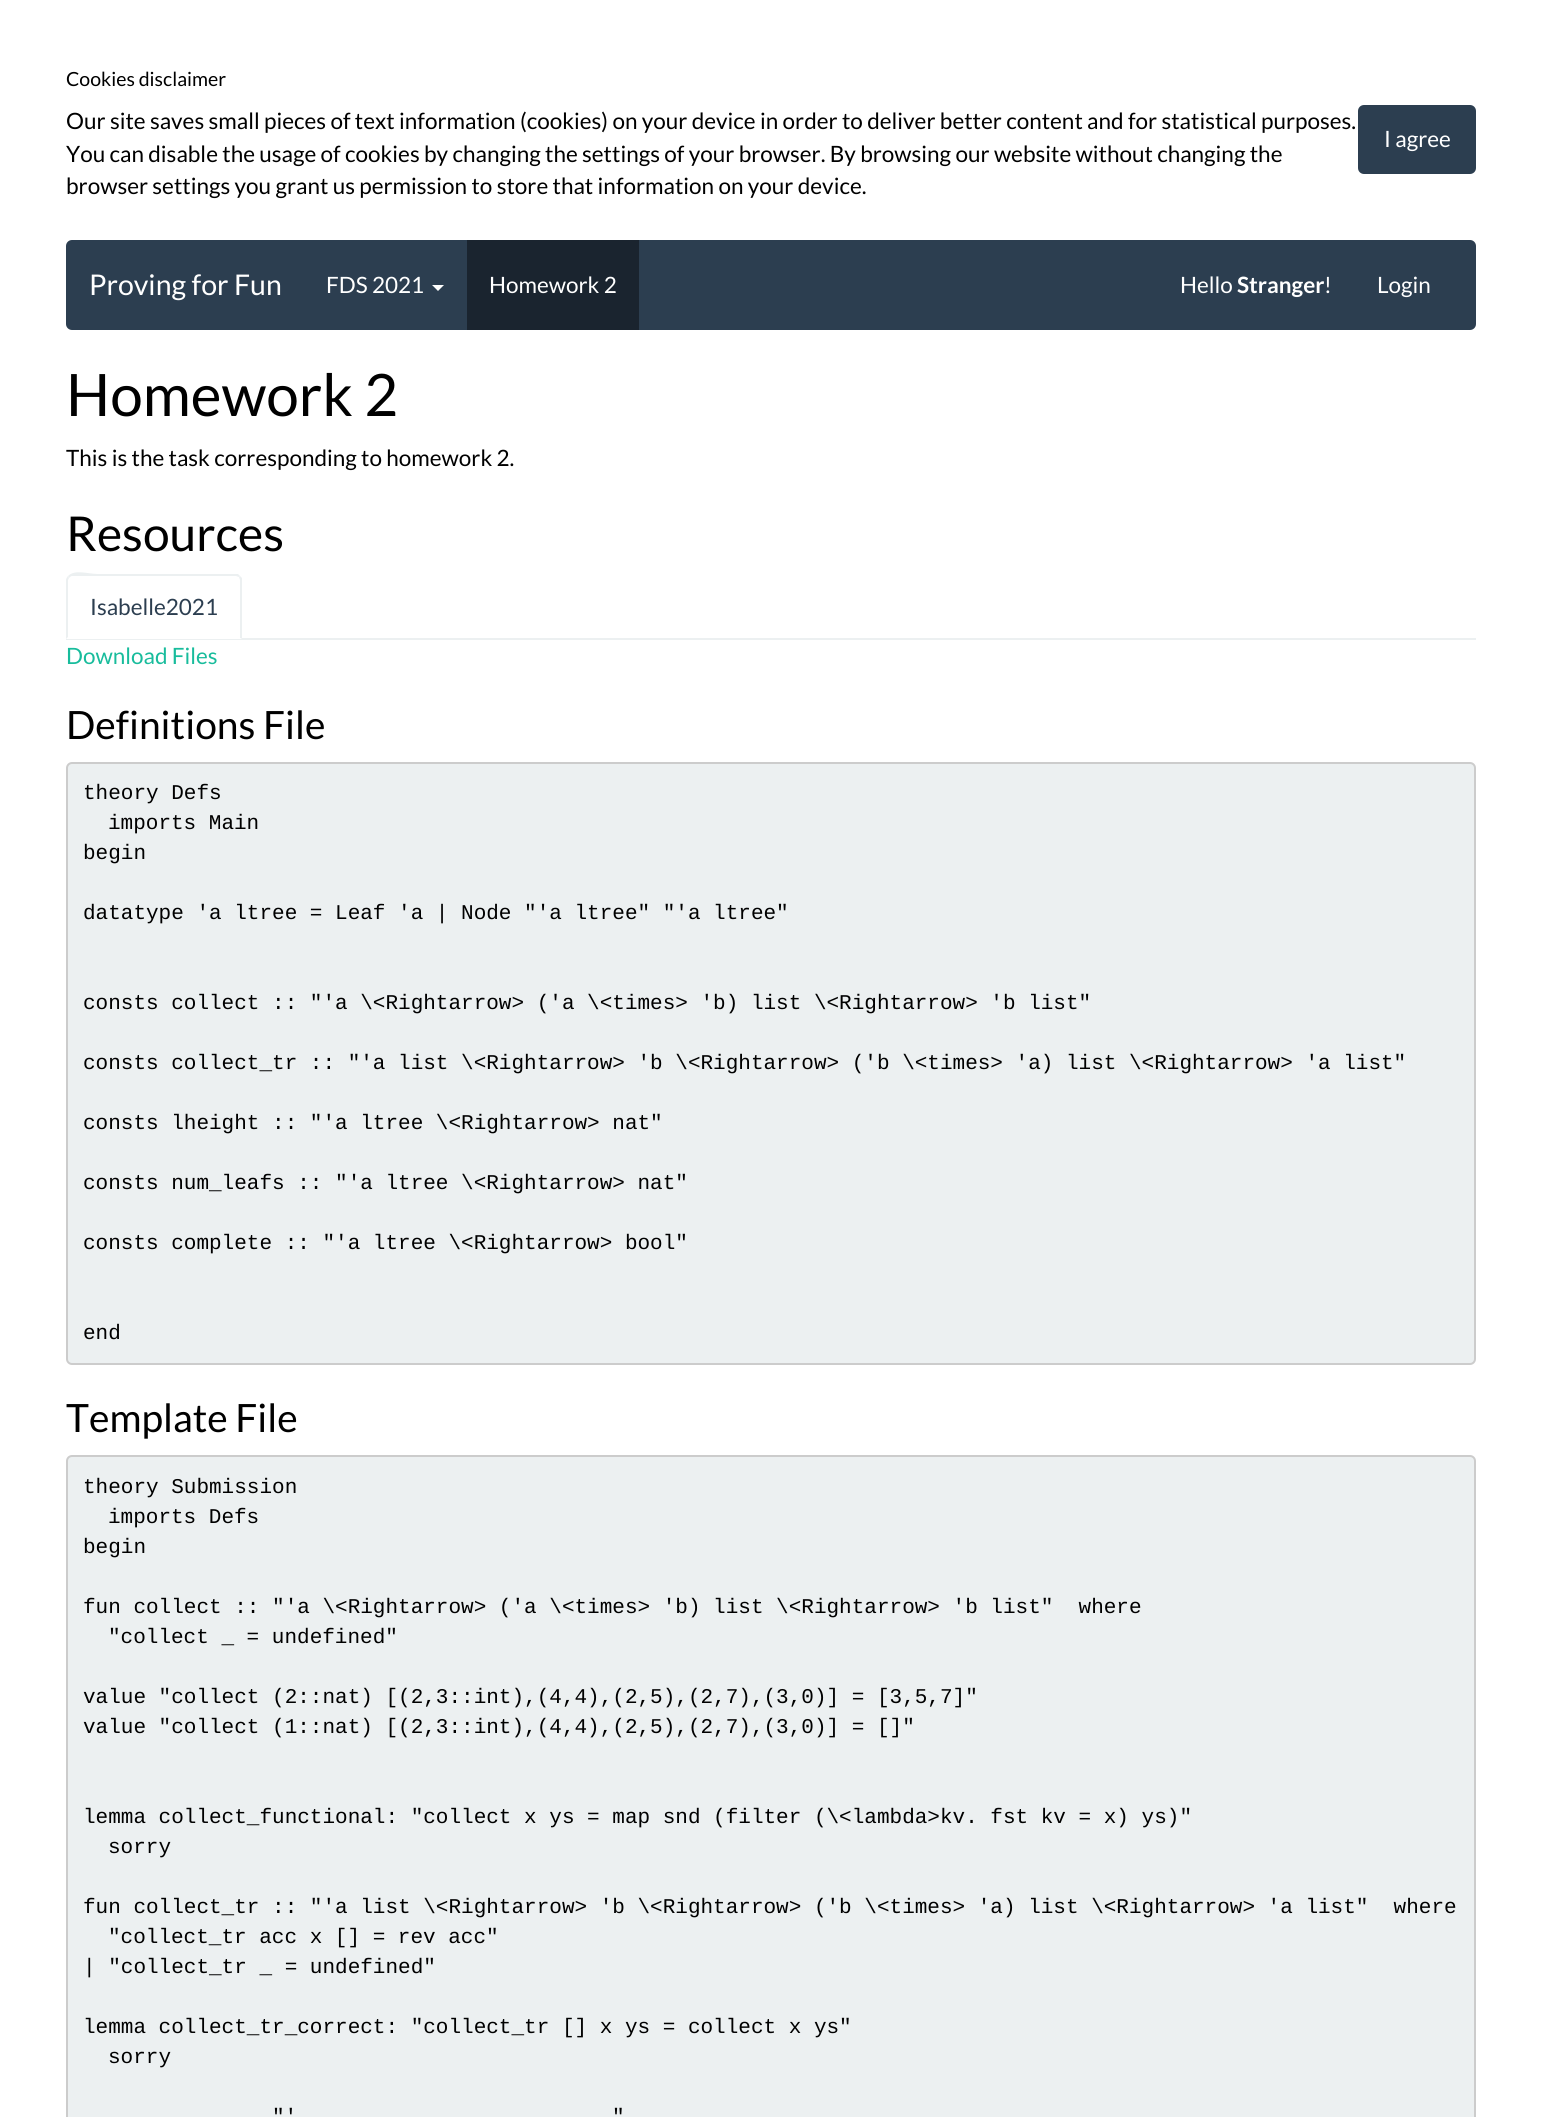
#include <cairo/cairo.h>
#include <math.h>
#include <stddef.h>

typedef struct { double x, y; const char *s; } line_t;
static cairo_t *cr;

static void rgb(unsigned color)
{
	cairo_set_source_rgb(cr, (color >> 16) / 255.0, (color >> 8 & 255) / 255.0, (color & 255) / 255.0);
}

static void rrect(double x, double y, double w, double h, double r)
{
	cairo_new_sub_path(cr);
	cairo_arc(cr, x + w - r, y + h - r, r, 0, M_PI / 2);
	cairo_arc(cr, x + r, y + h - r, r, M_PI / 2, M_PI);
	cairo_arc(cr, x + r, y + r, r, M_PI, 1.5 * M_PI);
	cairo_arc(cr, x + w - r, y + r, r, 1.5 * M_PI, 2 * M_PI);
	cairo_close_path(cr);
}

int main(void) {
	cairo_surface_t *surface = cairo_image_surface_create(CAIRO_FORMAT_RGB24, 1541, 2117);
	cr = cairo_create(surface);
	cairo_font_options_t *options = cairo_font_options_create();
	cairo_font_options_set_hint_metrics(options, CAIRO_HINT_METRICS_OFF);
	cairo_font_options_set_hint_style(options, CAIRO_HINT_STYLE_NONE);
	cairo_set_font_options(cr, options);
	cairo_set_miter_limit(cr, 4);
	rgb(0xffffff);
	cairo_paint(cr);
	rgb(0x2c3e50);
	rrect(1359.5, 106.5, 115, 66, 4.5);
	cairo_fill_preserve(cr);
	cairo_set_line_width(cr, 3);
	cairo_stroke(cr);
	rrect(66, 240, 1410, 90, 6);
	cairo_fill(cr);
	rgb(0xffffff);
	cairo_new_path(cr);
	cairo_move_to(cr, 432, 285);
	cairo_line_to(cr, 444, 285);
	cairo_line_to(cr, 438, 291);
	cairo_close_path(cr);
	cairo_fill(cr);
	rgb(0x1a242f);
	cairo_rectangle(cr, 467, 240, 172, 90);
	cairo_fill(cr);
	rgb(0xecf0f1);
	cairo_rectangle(cr, 66, 638, 1410, 2);
	cairo_fill(cr);
	rgb(0xffffff);
	cairo_new_path(cr);
	cairo_move_to(cr, 72, 575);
	cairo_line_to(cr, 236, 575);
	cairo_curve_to(cr, 239.5, 575, 242, 577.5, 242, 581);
	cairo_line_to(cr, 242, 639);
	cairo_line_to(cr, 66, 639);
	cairo_line_to(cr, 66, 581);
	cairo_curve_to(cr, 66, 577.5, 68.5, 575, 72, 575);
	cairo_close_path(cr);
	cairo_fill(cr);
	rgb(0xecf0f1);
	cairo_new_path(cr);
	cairo_move_to(cr, 72, 576);
	cairo_curve_to(cr, 71, 576, 70, 577, 69, 578);
	cairo_line_to(cr, 68, 576);
	cairo_curve_to(cr, 75, 569, 88, 574, 98, 574);
	cairo_line_to(cr, 238, 574);
	cairo_line_to(cr, 240, 576);
	cairo_line_to(cr, 239, 577);
	cairo_line_to(cr, 236, 576);
	cairo_close_path(cr);
	cairo_fill(cr);
	cairo_new_path(cr);
	cairo_move_to(cr, 242, 578);
	cairo_line_to(cr, 242, 639);
	cairo_line_to(cr, 240, 638);
	cairo_line_to(cr, 240, 580);
	cairo_line_to(cr, 239, 577);
	cairo_line_to(cr, 240, 576);
	cairo_close_path(cr);
	cairo_fill(cr);
	cairo_new_path(cr);
	cairo_move_to(cr, 66, 639);
	cairo_line_to(cr, 68, 637);
	cairo_line_to(cr, 68, 580);
	cairo_line_to(cr, 69, 578);
	cairo_line_to(cr, 68, 576);
	cairo_curve_to(cr, 67, 577, 66, 579, 66, 580);
	cairo_close_path(cr);
	cairo_fill(cr);
	rrect(67, 763, 1408, 601, 5);
	cairo_fill_preserve(cr);
	rgb(0xcccccc);
	cairo_set_line_width(cr, 2);
	cairo_stroke(cr);
	rgb(0xecf0f1);
	rrect(67, 1456, 1408, 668, 5);
	cairo_fill_preserve(cr);
	rgb(0xcccccc);
	cairo_stroke(cr);
	cairo_select_font_face(cr, "Lato", CAIRO_FONT_SLANT_NORMAL, CAIRO_FONT_WEIGHT_NORMAL);
	cairo_set_font_size(cr, 19.5);
	rgb(0x000000);
	cairo_move_to(cr, 66, 86);
	cairo_show_text(cr, "Cookies disclaimer");
	cairo_set_font_size(cr, 22.5);
	cairo_move_to(cr, 66, 129);
	cairo_show_text(cr, "Our site saves small pieces of text information (cookies) on your device in order to deliver better content and for statistical purposes.");
	rgb(0xffffff);
	cairo_move_to(cr, 1384, 147);
	cairo_show_text(cr, "I agree");
	rgb(0x000000);
	cairo_move_to(cr, 66, 162);
	cairo_show_text(cr, "You can disable the usage of cookies by changing the settings of your browser. By browsing our website without changing the");
	cairo_move_to(cr, 66, 194);
	cairo_show_text(cr, "browser settings you grant us permission to store that information on your device.");
	cairo_set_font_size(cr, 28.5);
	rgb(0xffffff);
	cairo_move_to(cr, 89, 295);
	cairo_show_text(cr, "Proving for Fun");
	cairo_set_font_size(cr, 22.5);
	{
		static const line_t items[] = {
			{326, 293, "FDS 2021"},
			{489, 293, "Homework 2"},
			{1180, 293, "Hello"},
		};
		for (size_t i = 0; i < sizeof items / sizeof *items; i++) {
			cairo_move_to(cr, items[i].x, items[i].y);
			cairo_show_text(cr, items[i].s);
		}
	}
	cairo_select_font_face(cr, "Lato", CAIRO_FONT_SLANT_NORMAL, CAIRO_FONT_WEIGHT_BOLD);
	cairo_move_to(cr, 1237, 293);
	cairo_show_text(cr, "Stranger");
	cairo_select_font_face(cr, "Lato", CAIRO_FONT_SLANT_NORMAL, CAIRO_FONT_WEIGHT_NORMAL);
	cairo_move_to(cr, 1324, 293);
	cairo_show_text(cr, "!");
	cairo_move_to(cr, 1377, 293);
	cairo_show_text(cr, "Login");
	cairo_set_font_size(cr, 58.5);
	rgb(0x000000);
	cairo_move_to(cr, 66, 416);
	cairo_show_text(cr, "Homework 2");
	cairo_set_font_size(cr, 22.5);
	cairo_move_to(cr, 66, 466);
	cairo_show_text(cr, "This is the task corresponding to homework 2.");
	cairo_set_font_size(cr, 48);
	cairo_move_to(cr, 66, 551);
	cairo_show_text(cr, "Resources");
	cairo_set_font_size(cr, 22.5);
	rgb(0x2c3e50);
	cairo_move_to(cr, 90, 615);
	cairo_show_text(cr, "Isabelle2021");
	rgb(0x18bc9c);
	cairo_move_to(cr, 66, 664);
	cairo_show_text(cr, "Download Files");
	cairo_set_font_size(cr, 39);
	rgb(0x000000);
	cairo_move_to(cr, 66, 739);
	cairo_show_text(cr, "Definitions File");
	cairo_select_font_face(cr, "Liberation Mono", CAIRO_FONT_SLANT_NORMAL, CAIRO_FONT_WEIGHT_NORMAL);
	cairo_set_font_size(cr, 21);
	{
		static const line_t items[] = {
			{83, 799, "theory Defs"},
			{108, 829, "imports Main"},
			{83, 859, "begin"},
			{83, 919, "datatype 'a ltree = Leaf 'a | Node \"'a ltree\" \"'a ltree\""},
			{83, 1009, "consts collect :: \"'a \\<Rightarrow> ('a \\<times> 'b) list \\<Rightarrow> 'b list\""},
			{83, 1069, "consts collect_tr :: \"'a list \\<Rightarrow> 'b \\<Rightarrow> ('b \\<times> 'a) list \\<Rightarrow> 'a list\""},
			{83, 1129, "consts lheight :: \"'a ltree \\<Rightarrow> nat\""},
			{83, 1189, "consts num_leafs :: \"'a ltree \\<Rightarrow> nat\""},
			{83, 1249, "consts complete :: \"'a ltree \\<Rightarrow> bool\""},
			{83, 1339, "end"},
		};
		for (size_t i = 0; i < sizeof items / sizeof *items; i++) {
			cairo_move_to(cr, items[i].x, items[i].y);
			cairo_show_text(cr, items[i].s);
		}
	}
	cairo_select_font_face(cr, "Lato", CAIRO_FONT_SLANT_NORMAL, CAIRO_FONT_WEIGHT_NORMAL);
	cairo_set_font_size(cr, 39);
	cairo_move_to(cr, 66, 1432);
	cairo_show_text(cr, "Template File");
	cairo_select_font_face(cr, "Liberation Mono", CAIRO_FONT_SLANT_NORMAL, CAIRO_FONT_WEIGHT_NORMAL);
	cairo_set_font_size(cr, 21);
	{
		static const line_t items[] = {
			{83, 1493, "theory Submission"},
			{108, 1523, "imports Defs"},
			{83, 1553, "begin"},
			{83, 1613, "fun collect :: \"'a \\<Rightarrow> ('a \\<times> 'b) list \\<Rightarrow> 'b list\"  where"},
			{108, 1643, "\"collect _ = undefined\""},
			{83, 1703, "value \"collect (2::nat) [(2,3::int),(4,4),(2,5),(2,7),(3,0)] = [3,5,7]\""},
			{83, 1733, "value \"collect (1::nat) [(2,3::int),(4,4),(2,5),(2,7),(3,0)] = []\""},
			{83, 1823, "lemma collect_functional: \"collect x ys = map snd (filter (\\<lambda>kv. fst kv = x) ys)\""},
			{108, 1853, "sorry"},
			{83, 1913, "fun collect_tr :: \"'a list \\<Rightarrow> 'b \\<Rightarrow> ('b \\<times> 'a) list \\<Rightarrow> 'a list\"  where"},
			{108, 1943, "\"collect_tr acc x [] = rev acc\""},
			{83, 1973, "| \"collect_tr _ = undefined\""},
			{83, 2033, "lemma collect_tr_correct: \"collect_tr [] x ys = collect x ys\""},
			{108, 2063, "sorry"},
			{272, 2123, "\"'"},
			{612, 2123, "\""},
		};
		for (size_t i = 0; i < sizeof items / sizeof *items; i++) {
			cairo_move_to(cr, items[i].x, items[i].y);
			cairo_show_text(cr, items[i].s);
		}
	}
	cairo_surface_write_to_png(surface, "page.png");
	cairo_font_options_destroy(options);
	cairo_destroy(cr);
	cairo_surface_destroy(surface);
	return 0;
}
